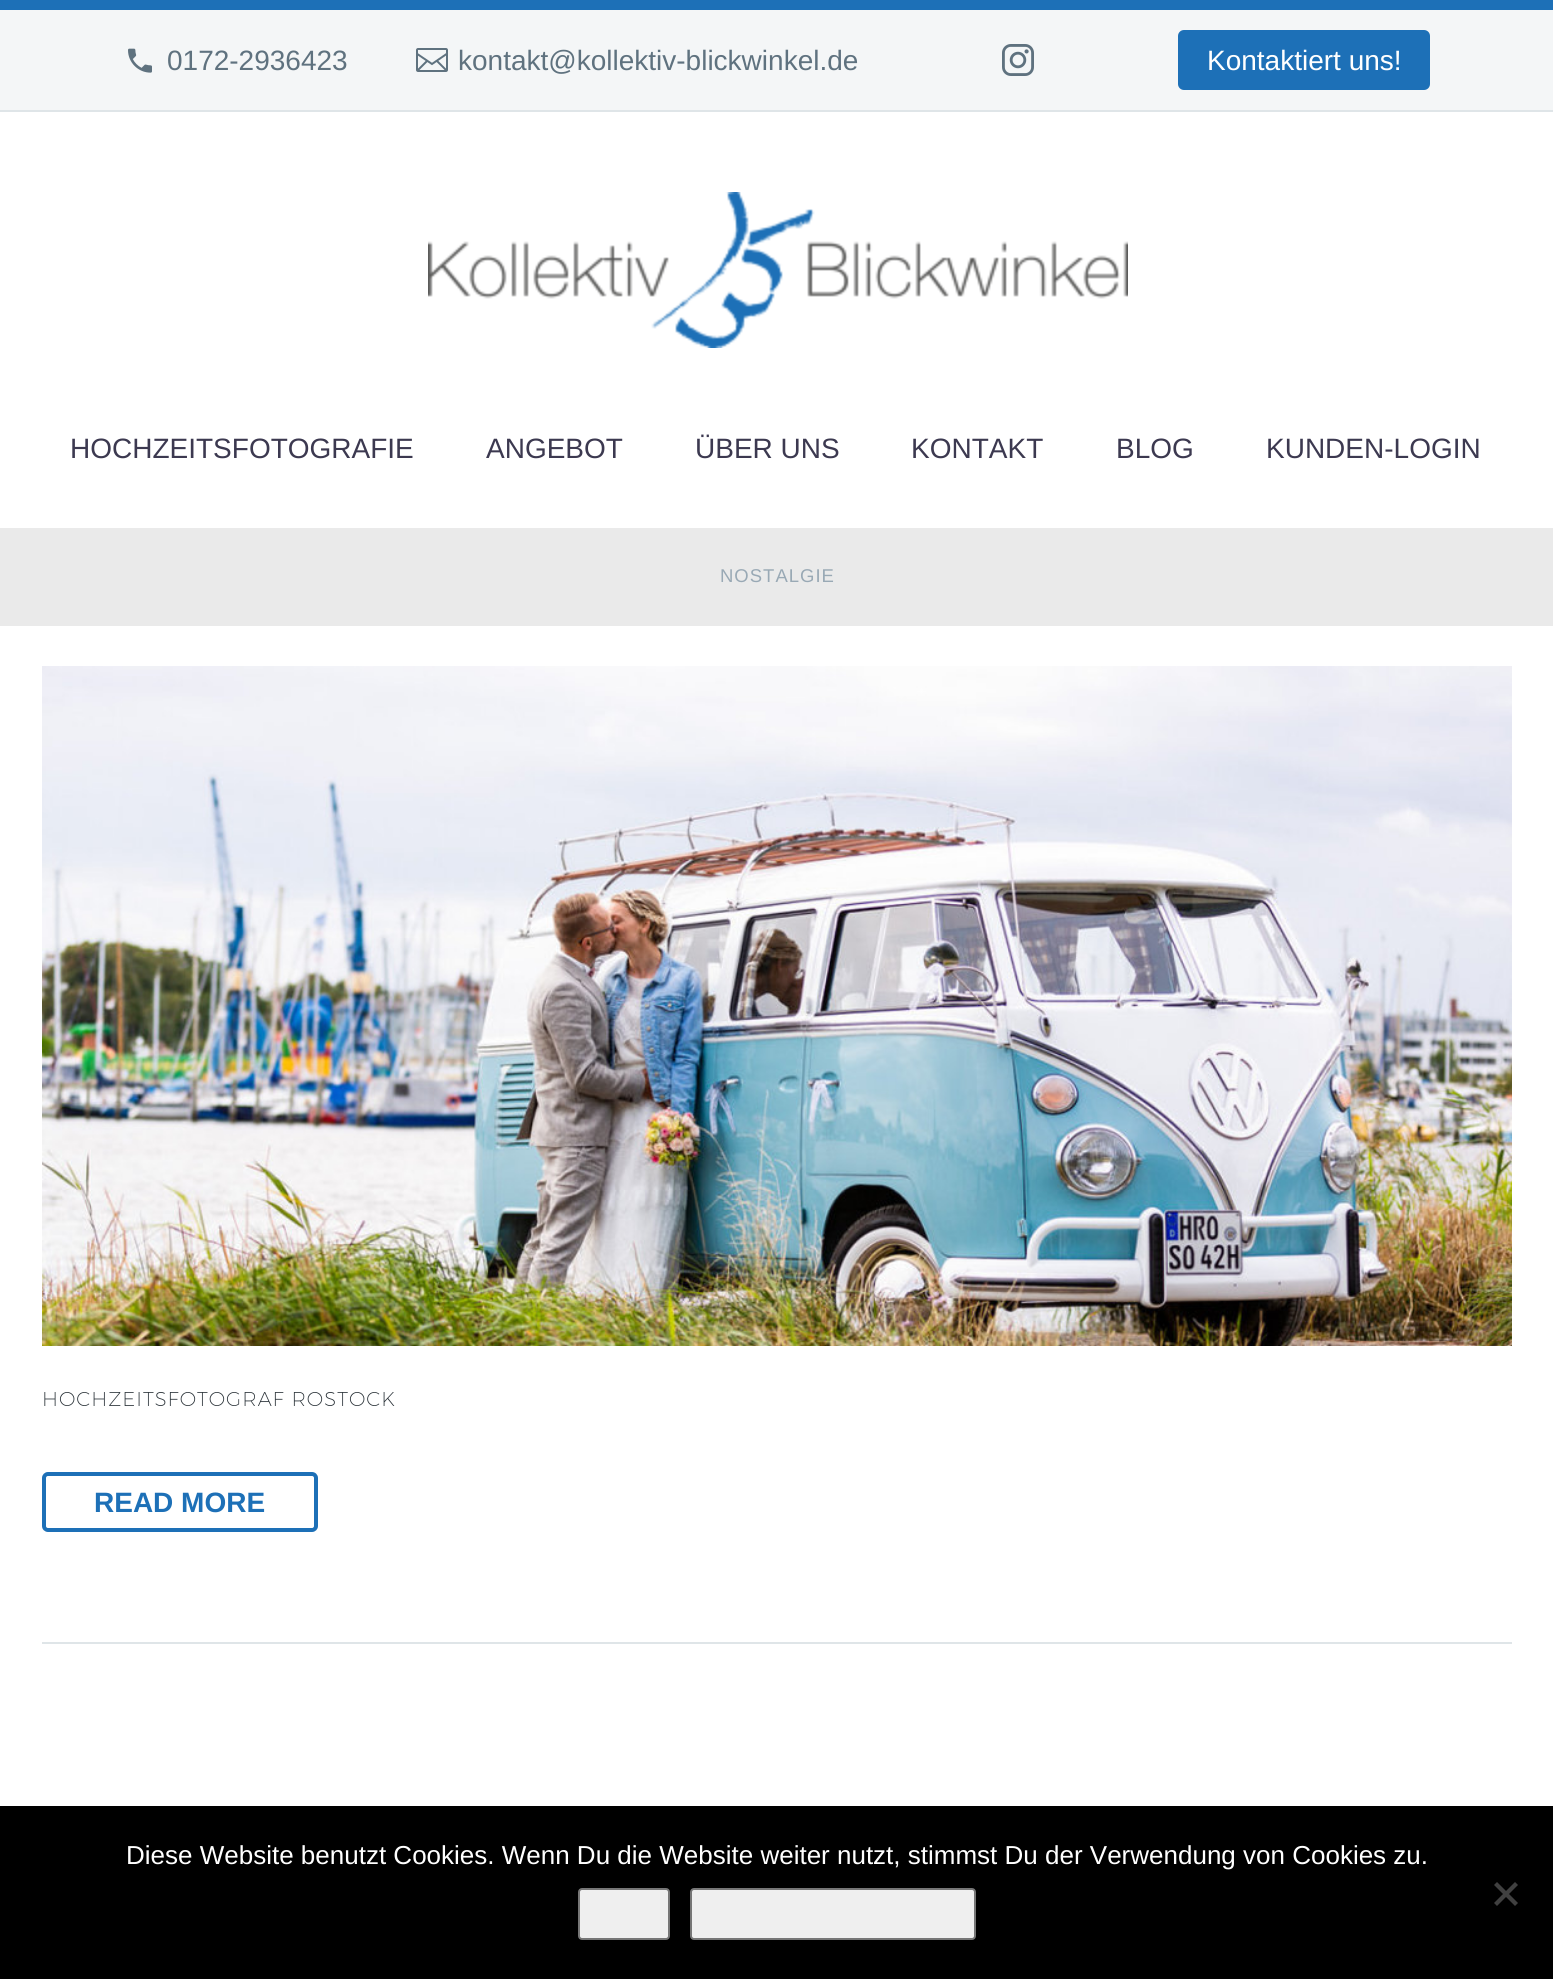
#include <cairo/cairo.h>
#include <math.h>
#include <stddef.h>

typedef struct { double x, y; const char *s; } line_t;
typedef struct { double x, y, w, h; unsigned color; } box_t;
static cairo_t *cr;

static void rgb(unsigned color)
{
	cairo_set_source_rgb(cr, (color >> 16) / 255.0, (color >> 8 & 255) / 255.0, (color & 255) / 255.0);
}

static void tracked(double x, double y, const char *s, double letter, double word)
{
	cairo_move_to(cr, x, y);
	while (*s) {
		char ch[5] = {0};
		int n = 0;
		do ch[n++] = *s++; while ((*s & 0xC0) == 0x80);
		cairo_show_text(cr, ch);
		cairo_rel_move_to(cr, letter + word * (*ch == ' '), 0);
	}
}

static void rrect(double x, double y, double w, double h, double r)
{
	cairo_new_sub_path(cr);
	cairo_arc(cr, x + w - r, y + h - r, r, 0, M_PI / 2);
	cairo_arc(cr, x + r, y + h - r, r, M_PI / 2, M_PI);
	cairo_arc(cr, x + r, y + r, r, M_PI, 1.5 * M_PI);
	cairo_arc(cr, x + w - r, y + r, r, 1.5 * M_PI, 2 * M_PI);
	cairo_close_path(cr);
}

static void image(const char *path, double x, double y, double w, double h)
{
	cairo_surface_t *image = cairo_image_surface_create_from_png(path);
	cairo_save(cr);
	cairo_set_source_surface(cr, image, x, y);
	cairo_rectangle(cr, x, y, w, h);
	cairo_fill(cr);
	cairo_restore(cr);
	cairo_surface_destroy(image);
}

int main(void) {
	cairo_surface_t *surface = cairo_image_surface_create(CAIRO_FORMAT_RGB24, 1553, 1979);
	cr = cairo_create(surface);
	cairo_font_options_t *options = cairo_font_options_create();
	cairo_font_options_set_hint_metrics(options, CAIRO_HINT_METRICS_OFF);
	cairo_font_options_set_hint_style(options, CAIRO_HINT_STYLE_NONE);
	cairo_set_font_options(cr, options);
	cairo_set_miter_limit(cr, 4);
	rgb(0xffffff);
	cairo_paint(cr);
	{
		static const box_t items[] = {
			{0, 10, 1553, 100, 0xf4f6f7},
			{0, 0, 1553, 10, 0x1d70b7},
			{0, 110, 1553, 2, 0xdfe5e8},
		};
		for (size_t i = 0; i < sizeof items / sizeof *items; i++) {
			rgb(items[i].color);
			cairo_rectangle(cr, items[i].x, items[i].y, items[i].w, items[i].h);
			cairo_fill(cr);
		}
	}
	image("img/1.png", 128, 48, 24, 25);
	image("img/2.png", 416, 48, 32, 24);
	image("img/3.png", 1002, 44, 32, 32);
	rgb(0x1d70b7);
	rrect(1178, 30, 252, 60, 6);
	cairo_fill(cr);
	image("img/4.png", 428, 192, 700, 156);
	rgb(0xeaeaea);
	cairo_rectangle(cr, 0, 528, 1553, 98);
	cairo_fill(cr);
	rgb(0xdfe5e8);
	cairo_rectangle(cr, 42, 1642, 1470, 2);
	cairo_fill(cr);
	image("img/5.png", 42, 666, 1470, 680);
	rrect(44, 1474, 272, 56, 4);
	rgb(0x1d70b7);
	cairo_set_line_width(cr, 4);
	cairo_stroke(cr);
	rgb(0x000000);
	cairo_rectangle(cr, 0, 1806, 1553, 173);
	cairo_fill(cr);
	rgb(0xefefef);
	rrect(579, 1889, 90, 50, 3);
	cairo_fill_preserve(cr);
	rgb(0x767676);
	cairo_set_line_width(cr, 2);
	cairo_stroke(cr);
	rgb(0xefefef);
	rrect(691, 1889, 284, 50, 3);
	cairo_fill_preserve(cr);
	rgb(0x767676);
	cairo_stroke(cr);
	rgb(0x404040);
	cairo_new_path(cr);
	cairo_move_to(cr, 1515, 1882);
	cairo_line_to(cr, 1518, 1885);
	cairo_line_to(cr, 1497, 1906);
	cairo_line_to(cr, 1494, 1903);
	cairo_close_path(cr);
	cairo_fill(cr);
	cairo_new_path(cr);
	cairo_move_to(cr, 1494, 1885);
	cairo_line_to(cr, 1497, 1882);
	cairo_line_to(cr, 1518, 1903);
	cairo_line_to(cr, 1515, 1906);
	cairo_close_path(cr);
	cairo_fill(cr);
	cairo_select_font_face(cr, "Liberation Sans", CAIRO_FONT_SLANT_NORMAL, CAIRO_FONT_WEIGHT_NORMAL);
	cairo_set_font_size(cr, 28);
	rgb(0x5f727f);
	cairo_move_to(cr, 167, 70);
	cairo_show_text(cr, "0172-2936423");
	cairo_move_to(cr, 458, 70);
	cairo_show_text(cr, "kontakt@kollektiv-blickwinkel.de");
	rgb(0xffffff);
	cairo_move_to(cr, 1207, 70);
	cairo_show_text(cr, "Kontaktiert uns!");
	rgb(0x3c3950);
	{
		static const line_t items[] = {
			{70, 458, "HOCHZEITSFOTOGRAFIE"},
			{486, 458, "ANGEBOT"},
			{695, 458, "ÜBER UNS"},
			{911, 458, "KONTAKT"},
			{1116, 458, "BLOG"},
			{1266, 458, "KUNDEN-LOGIN"},
		};
		for (size_t i = 0; i < sizeof items / sizeof *items; i++) {
			cairo_move_to(cr, items[i].x, items[i].y);
			cairo_show_text(cr, items[i].s);
		}
	}
	cairo_set_font_size(cr, 18.5);
	rgb(0x99a9b5);
	tracked(720, 582, "NOSTALGIE", 1, 0);
	cairo_select_font_face(cr, "Montserrat ExtraLight", CAIRO_FONT_SLANT_NORMAL, CAIRO_FONT_WEIGHT_NORMAL);
	cairo_set_font_size(cr, 20);
	rgb(0x2a3238);
	tracked(42, 1406, "HOCHZEITSFOTOGRAF ROSTOCK", 1, 0);
	cairo_select_font_face(cr, "Liberation Sans", CAIRO_FONT_SLANT_NORMAL, CAIRO_FONT_WEIGHT_BOLD);
	cairo_set_font_size(cr, 28);
	rgb(0x1d70b7);
	cairo_move_to(cr, 94, 1512);
	cairo_show_text(cr, "READ MORE");
	cairo_select_font_face(cr, "Liberation Sans", CAIRO_FONT_SLANT_NORMAL, CAIRO_FONT_WEIGHT_NORMAL);
	cairo_set_font_size(cr, 26);
	rgb(0xffffff);
	cairo_move_to(cr, 126, 1864);
	cairo_show_text(cr, "Diese Website benutzt Cookies. Wenn Du die Website weiter nutzt, stimmst Du der Verwendung von Cookies zu.");
	cairo_surface_write_to_png(surface, "page.png");
	cairo_font_options_destroy(options);
	cairo_destroy(cr);
	cairo_surface_destroy(surface);
	return 0;
}
